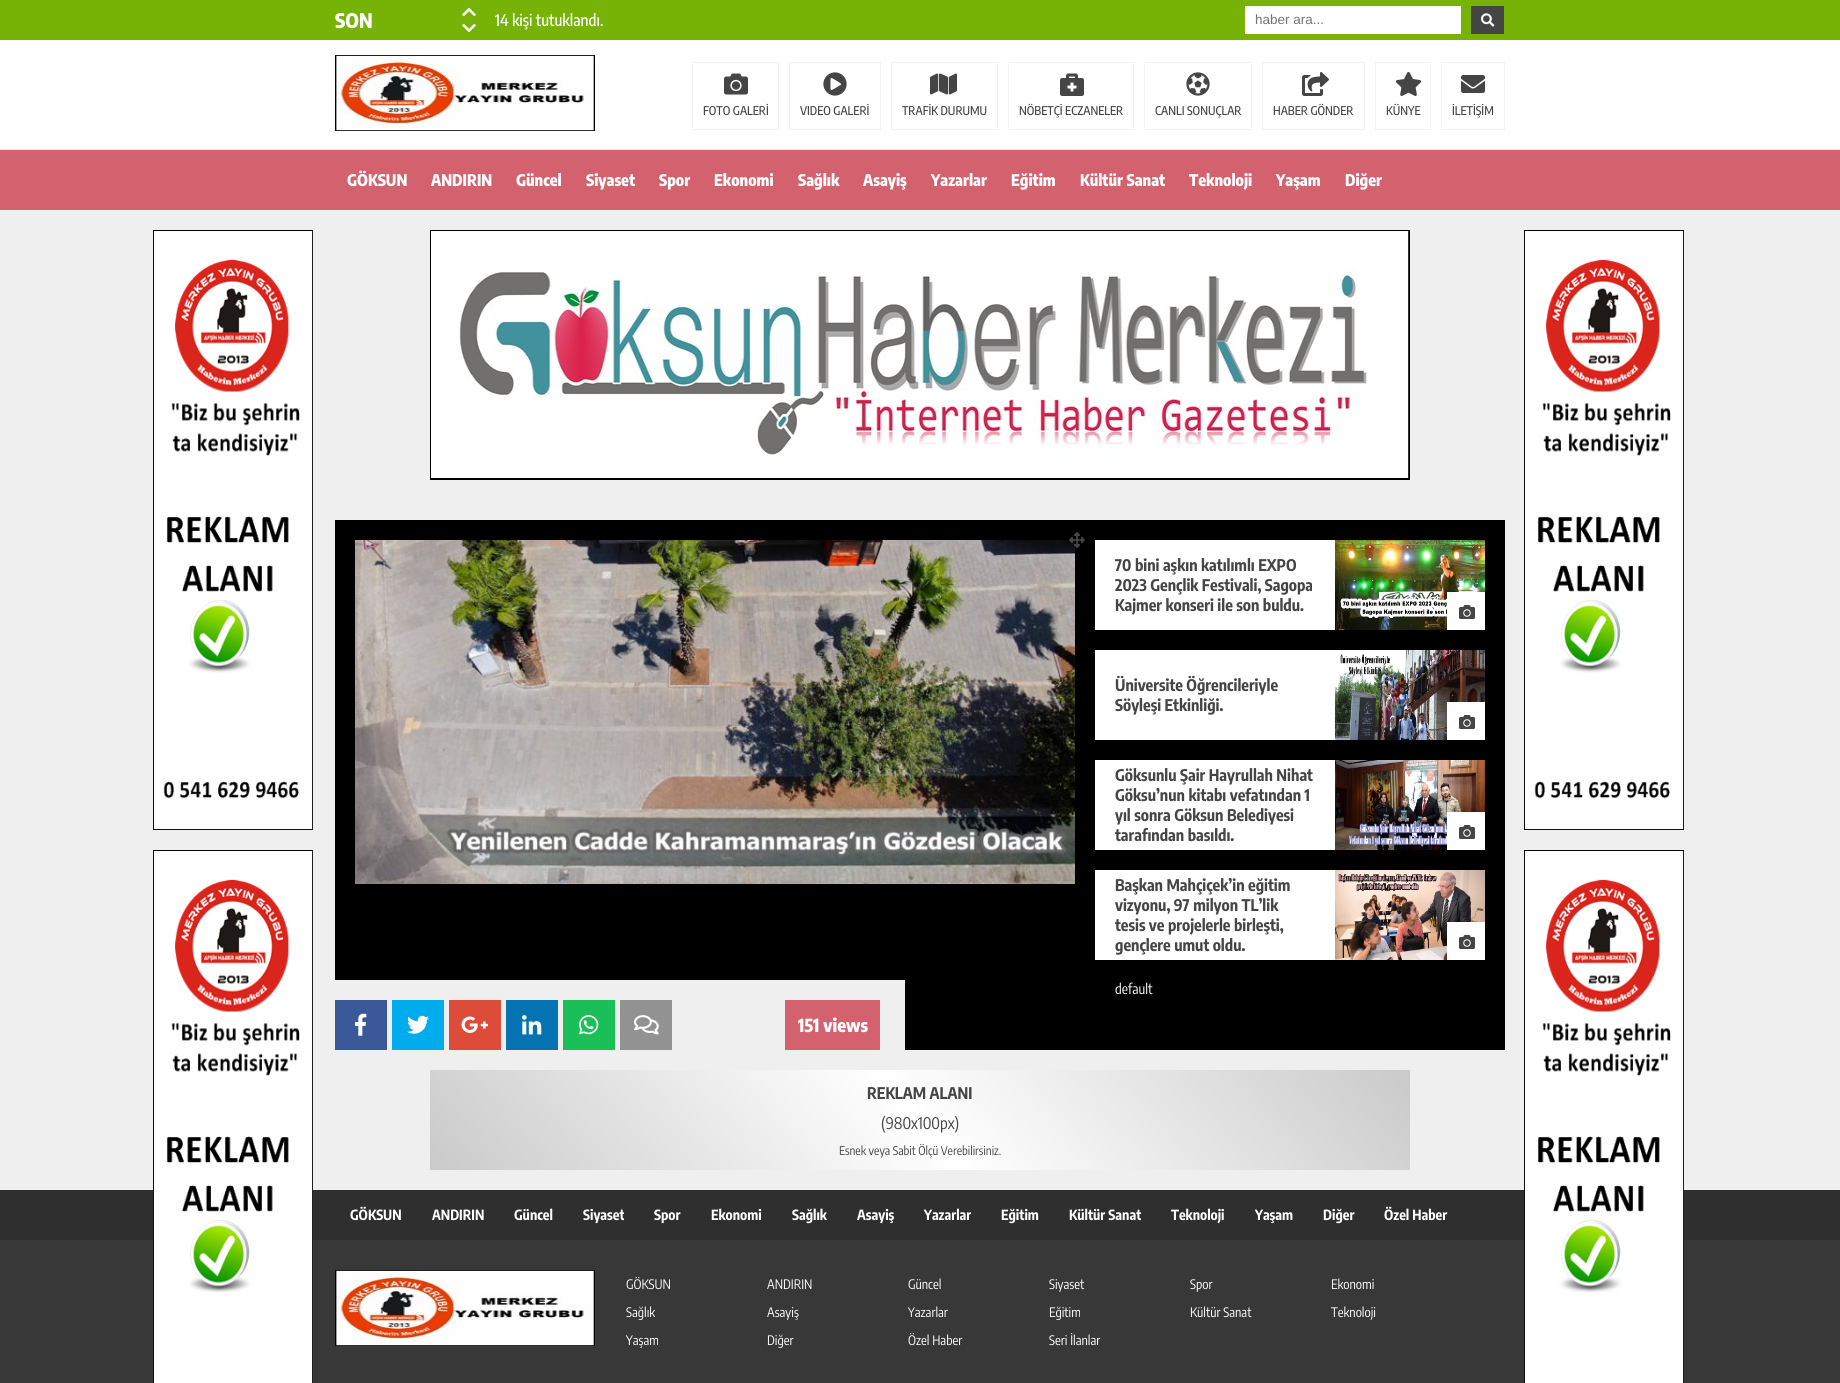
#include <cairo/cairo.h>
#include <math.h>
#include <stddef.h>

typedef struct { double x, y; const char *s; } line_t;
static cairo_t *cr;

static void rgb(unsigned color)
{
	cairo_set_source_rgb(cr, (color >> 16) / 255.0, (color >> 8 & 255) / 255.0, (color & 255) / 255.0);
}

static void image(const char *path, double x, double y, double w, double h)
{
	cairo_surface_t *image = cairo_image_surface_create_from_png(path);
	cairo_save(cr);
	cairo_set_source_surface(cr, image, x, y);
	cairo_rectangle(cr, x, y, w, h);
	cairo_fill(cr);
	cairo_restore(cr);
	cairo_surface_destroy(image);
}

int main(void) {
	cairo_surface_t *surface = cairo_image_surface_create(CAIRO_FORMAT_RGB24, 1840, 1383);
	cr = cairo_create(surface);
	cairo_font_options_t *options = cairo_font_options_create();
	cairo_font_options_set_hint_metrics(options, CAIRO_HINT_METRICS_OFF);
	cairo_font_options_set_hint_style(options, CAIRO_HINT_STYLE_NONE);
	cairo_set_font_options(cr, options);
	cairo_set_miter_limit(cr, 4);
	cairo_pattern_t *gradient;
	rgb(0xefefef);
	cairo_paint(cr);
	rgb(0x76b306);
	cairo_rectangle(cr, 0, 0, 1840, 40);
	cairo_fill(cr);
	image("img/1.png", 462, 7, 14, 10);
	image("img/2.png", 462, 23, 14, 10);
	rgb(0xffffff);
	cairo_rectangle(cr, 1245, 6, 216, 28);
	cairo_fill(cr);
	rgb(0x454545);
	cairo_rectangle(cr, 1471, 6, 33, 28);
	cairo_fill(cr);
	image("img/3.png", 1481, 13, 14, 14);
	rgb(0xffffff);
	cairo_rectangle(cr, 0, 40, 1840, 109);
	cairo_fill(cr);
	rgb(0xe6e6e6);
	cairo_rectangle(cr, 0, 149, 1840, 1);
	cairo_fill(cr);
	image("img/4.png", 335, 55, 260, 76);
	image("img/5.png", 724, 73, 24, 22);
	cairo_rectangle(cr, 692.5, 62.5, 86, 67);
	rgb(0xf3f3f3);
	cairo_set_line_width(cr, 1);
	cairo_stroke(cr);
	image("img/6.png", 823, 72, 24, 24);
	cairo_rectangle(cr, 789.5, 62.5, 91, 67);
	cairo_stroke(cr);
	image("img/7.png", 930, 73, 27, 22);
	cairo_rectangle(cr, 891.5, 62.5, 106, 67);
	cairo_stroke(cr);
	image("img/8.png", 1060, 73, 24, 23);
	cairo_rectangle(cr, 1008.5, 62.5, 125, 67);
	cairo_stroke(cr);
	image("img/9.png", 1186, 72, 24, 24);
	cairo_rectangle(cr, 1144.5, 62.5, 107, 67);
	cairo_stroke(cr);
	image("img/10.png", 1302, 72, 27, 24);
	cairo_rectangle(cr, 1262.5, 62.5, 102, 67);
	cairo_stroke(cr);
	image("img/11.png", 1396, 72, 25, 24);
	cairo_rectangle(cr, 1375.5, 62.5, 55, 67);
	cairo_stroke(cr);
	image("img/12.png", 1461, 75, 24, 18);
	cairo_rectangle(cr, 1441.5, 62.5, 63, 67);
	cairo_stroke(cr);
	rgb(0xd4616e);
	cairo_rectangle(cr, 0, 150, 1840, 60);
	cairo_fill(cr);
	image("img/13.png", 153, 230, 160, 600);
	rgb(0x383838);
	cairo_rectangle(cr, 0, 1240, 1840, 143);
	cairo_fill(cr);
	rgb(0x2f2f2f);
	cairo_rectangle(cr, 0, 1190, 1840, 50);
	cairo_fill(cr);
	image("img/14.png", 153, 850, 160, 533);
	image("img/13.png", 1524, 230, 160, 600);
	image("img/14.png", 1524, 850, 160, 533);
	image("img/15.png", 430, 230, 980, 250);
	rgb(0x000000);
	cairo_rectangle(cr, 335, 520, 570, 460);
	cairo_fill(cr);
	cairo_rectangle(cr, 905, 520, 600, 530);
	cairo_fill(cr);
	image("img/16.png", 355, 540, 720, 344);
	image("img/17.png", 1069, 532, 16, 16);
	rgb(0xffffff);
	cairo_rectangle(cr, 1095, 540, 240, 90);
	cairo_fill(cr);
	image("img/18.png", 1335, 540, 150, 90);
	cairo_rectangle(cr, 1447, 592, 38, 38);
	cairo_fill(cr);
	image("img/19.png", 1459, 605, 16, 14);
	cairo_rectangle(cr, 1095, 650, 240, 90);
	cairo_fill(cr);
	image("img/20.png", 1335, 650, 150, 90);
	cairo_rectangle(cr, 1447, 702, 38, 38);
	cairo_fill(cr);
	image("img/19.png", 1459, 715, 16, 14);
	cairo_rectangle(cr, 1095, 760, 240, 90);
	cairo_fill(cr);
	image("img/21.png", 1335, 760, 150, 90);
	cairo_rectangle(cr, 1447, 812, 38, 38);
	cairo_fill(cr);
	image("img/19.png", 1459, 825, 16, 14);
	cairo_rectangle(cr, 1095, 870, 240, 90);
	cairo_fill(cr);
	image("img/22.png", 1335, 870, 150, 90);
	cairo_rectangle(cr, 1447, 922, 38, 38);
	cairo_fill(cr);
	image("img/19.png", 1459, 935, 16, 14);
	rgb(0x3b5998);
	cairo_rectangle(cr, 335, 1000, 52, 50);
	cairo_fill(cr);
	image("img/23.png", 355, 1013, 12, 23);
	rgb(0x00aced);
	cairo_rectangle(cr, 392, 1000, 52, 50);
	cairo_fill(cr);
	image("img/24.png", 407, 1015, 22, 19);
	rgb(0xdd4b39);
	cairo_rectangle(cr, 449, 1000, 52, 50);
	cairo_fill(cr);
	image("img/25.png", 461, 1016, 27, 17);
	rgb(0x0573b1);
	cairo_rectangle(cr, 506, 1000, 52, 50);
	cairo_fill(cr);
	image("img/26.png", 522, 1015, 20, 20);
	rgb(0x1bbf58);
	cairo_rectangle(cr, 563, 1000, 52, 50);
	cairo_fill(cr);
	image("img/27.png", 579, 1015, 20, 20);
	rgb(0x929292);
	cairo_rectangle(cr, 620, 1000, 52, 50);
	cairo_fill(cr);
	image("img/28.png", 634, 1015, 25, 20);
	rgb(0xd4616e);
	cairo_rectangle(cr, 785, 1000, 95, 50);
	cairo_fill(cr);
	gradient = cairo_pattern_create_linear(608, 1382, 1232, 858);
	cairo_pattern_add_color_stop_rgba(gradient, 0, 0.792, 0.792, 0.792, 1);
	cairo_pattern_add_color_stop_rgba(gradient, 0.5, 1, 1, 1, 1);
	cairo_pattern_add_color_stop_rgba(gradient, 1, 0.792, 0.792, 0.792, 1);
	cairo_set_source(cr, gradient);
	cairo_pattern_destroy(gradient);
	cairo_rectangle(cr, 430, 1070, 980, 100);
	cairo_fill(cr);
	image("img/4.png", 335, 1270, 260, 76);
	cairo_select_font_face(cr, "Encode Sans Condensed ExtraBold", CAIRO_FONT_SLANT_NORMAL, CAIRO_FONT_WEIGHT_NORMAL);
	cairo_set_font_size(cr, 20);
	rgb(0xffffff);
	cairo_move_to(cr, 335, 28);
	cairo_show_text(cr, "SON");
	cairo_select_font_face(cr, "Encode Sans Condensed Medium", CAIRO_FONT_SLANT_NORMAL, CAIRO_FONT_WEIGHT_NORMAL);
	cairo_set_font_size(cr, 16);
	cairo_move_to(cr, 495, 26);
	cairo_show_text(cr, "14 kişi tutuklandı.");
	cairo_select_font_face(cr, "Liberation Sans", CAIRO_FONT_SLANT_NORMAL, CAIRO_FONT_WEIGHT_NORMAL);
	cairo_set_font_size(cr, 13.5);
	rgb(0x757575);
	cairo_move_to(cr, 1255, 24);
	cairo_show_text(cr, "haber ara...");
	cairo_select_font_face(cr, "Encode Sans Condensed Medium", CAIRO_FONT_SLANT_NORMAL, CAIRO_FONT_WEIGHT_NORMAL);
	cairo_set_font_size(cr, 12);
	rgb(0x454545);
	{
		static const line_t items[] = {
			{703, 115, "FOTO GALERİ"},
			{800, 115, "VIDEO GALERİ"},
			{902, 115, "TRAFİK DURUMU"},
			{1019, 115, "NÖBETÇİ ECZANELER"},
			{1155, 115, "CANLI SONUÇLAR"},
			{1273, 115, "HABER GÖNDER"},
			{1386, 115, "KÜNYE"},
			{1452, 115, "İLETİŞİM"},
		};
		for (size_t i = 0; i < sizeof items / sizeof *items; i++) {
			cairo_move_to(cr, items[i].x, items[i].y);
			cairo_show_text(cr, items[i].s);
		}
	}
	cairo_select_font_face(cr, "Encode Sans Condensed ExtraBold", CAIRO_FONT_SLANT_NORMAL, CAIRO_FONT_WEIGHT_NORMAL);
	cairo_set_font_size(cr, 16);
	rgb(0xffffff);
	{
		static const line_t items[] = {
			{347, 186, "GÖKSUN"},
			{431, 186, "ANDIRIN"},
			{516, 186, "Güncel"},
			{586, 186, "Siyaset"},
			{659, 186, "Spor"},
			{714, 186, "Ekonomi"},
			{798, 186, "Sağlık"},
			{863, 186, "Asayiş"},
			{931, 186, "Yazarlar"},
			{1011, 186, "Eğitim"},
			{1080, 186, "Kültür Sanat"},
			{1189, 186, "Teknoloji"},
			{1276, 186, "Yaşam"},
			{1345, 186, "Diğer"},
		};
		for (size_t i = 0; i < sizeof items / sizeof *items; i++) {
			cairo_move_to(cr, items[i].x, items[i].y);
			cairo_show_text(cr, items[i].s);
		}
	}
	cairo_select_font_face(cr, "Encode Sans Condensed", CAIRO_FONT_SLANT_NORMAL, CAIRO_FONT_WEIGHT_BOLD);
	rgb(0x454545);
	{
		static const line_t items[] = {
			{1115, 571, "70 bini aşkın katılımlı EXPO"},
			{1115, 591, "2023 Gençlik Festivali, Sagopa"},
			{1115, 611, "Kajmer konseri ile son buldu."},
			{1115, 691, "Üniversite Öğrencileriyle"},
			{1115, 711, "Söyleşi Etkinliği."},
			{1115, 781, "Göksunlu Şair Hayrullah Nihat"},
			{1115, 801, "Göksu’nun kitabı vefatından 1"},
			{1115, 821, "yıl sonra Göksun Belediyesi"},
			{1115, 841, "tarafından basıldı."},
			{1115, 891, "Başkan Mahçiçek’in eğitim"},
			{1115, 911, "vizyonu, 97 milyon TL’lik"},
			{1115, 931, "tesis ve projelerle birleşti,"},
			{1115, 951, "gençlere umut oldu."},
		};
		for (size_t i = 0; i < sizeof items / sizeof *items; i++) {
			cairo_move_to(cr, items[i].x, items[i].y);
			cairo_show_text(cr, items[i].s);
		}
	}
	cairo_select_font_face(cr, "Encode Sans Condensed", CAIRO_FONT_SLANT_NORMAL, CAIRO_FONT_WEIGHT_NORMAL);
	cairo_set_font_size(cr, 14);
	rgb(0xffffff);
	cairo_move_to(cr, 1115, 994);
	cairo_show_text(cr, "default");
	cairo_select_font_face(cr, "Encode Sans Condensed ExtraBold", CAIRO_FONT_SLANT_NORMAL, CAIRO_FONT_WEIGHT_NORMAL);
	cairo_set_font_size(cr, 18);
	cairo_move_to(cr, 798, 1032);
	cairo_show_text(cr, "151 views");
	cairo_select_font_face(cr, "Encode Sans Condensed", CAIRO_FONT_SLANT_NORMAL, CAIRO_FONT_WEIGHT_BOLD);
	cairo_set_font_size(cr, 16);
	rgb(0x454545);
	cairo_move_to(cr, 867, 1099);
	cairo_show_text(cr, "REKLAM ALANI");
	cairo_select_font_face(cr, "Encode Sans Condensed", CAIRO_FONT_SLANT_NORMAL, CAIRO_FONT_WEIGHT_NORMAL);
	cairo_move_to(cr, 881, 1129);
	cairo_show_text(cr, "(980x100px)");
	cairo_set_font_size(cr, 12);
	cairo_move_to(cr, 839, 1155);
	cairo_show_text(cr, "Esnek veya Sabit Ölçü Verebilirsiniz.");
	cairo_select_font_face(cr, "Encode Sans Condensed", CAIRO_FONT_SLANT_NORMAL, CAIRO_FONT_WEIGHT_BOLD);
	cairo_set_font_size(cr, 14);
	rgb(0xffffff);
	{
		static const line_t items[] = {
			{350, 1220, "GÖKSUN"},
			{432, 1220, "ANDIRIN"},
			{514, 1220, "Güncel"},
			{583, 1220, "Siyaset"},
			{654, 1220, "Spor"},
			{711, 1220, "Ekonomi"},
			{792, 1220, "Sağlık"},
			{857, 1220, "Asayiş"},
			{924, 1220, "Yazarlar"},
			{1001, 1220, "Eğitim"},
			{1069, 1220, "Kültür Sanat"},
			{1171, 1220, "Teknoloji"},
			{1255, 1220, "Yaşam"},
			{1323, 1220, "Diğer"},
			{1384, 1220, "Özel Haber"},
		};
		for (size_t i = 0; i < sizeof items / sizeof *items; i++) {
			cairo_move_to(cr, items[i].x, items[i].y);
			cairo_show_text(cr, items[i].s);
		}
	}
	cairo_select_font_face(cr, "Encode Sans Condensed", CAIRO_FONT_SLANT_NORMAL, CAIRO_FONT_WEIGHT_NORMAL);
	cairo_set_font_size(cr, 13);
	{
		static const line_t items[] = {
			{626, 1289, "GÖKSUN"},
			{767, 1289, "ANDIRIN"},
			{908, 1289, "Güncel"},
			{1049, 1289, "Siyaset"},
			{1190, 1289, "Spor"},
			{1331, 1289, "Ekonomi"},
			{626, 1317, "Sağlık"},
			{767, 1317, "Asayiş"},
			{908, 1317, "Yazarlar"},
			{1049, 1317, "Eğitim"},
			{1190, 1317, "Kültür Sanat"},
			{1331, 1317, "Teknoloji"},
			{626, 1345, "Yaşam"},
			{767, 1345, "Diğer"},
			{908, 1345, "Özel Haber"},
			{1049, 1345, "Seri İlanlar"},
		};
		for (size_t i = 0; i < sizeof items / sizeof *items; i++) {
			cairo_move_to(cr, items[i].x, items[i].y);
			cairo_show_text(cr, items[i].s);
		}
	}
	cairo_surface_write_to_png(surface, "page.png");
	cairo_font_options_destroy(options);
	cairo_destroy(cr);
	cairo_surface_destroy(surface);
	return 0;
}
